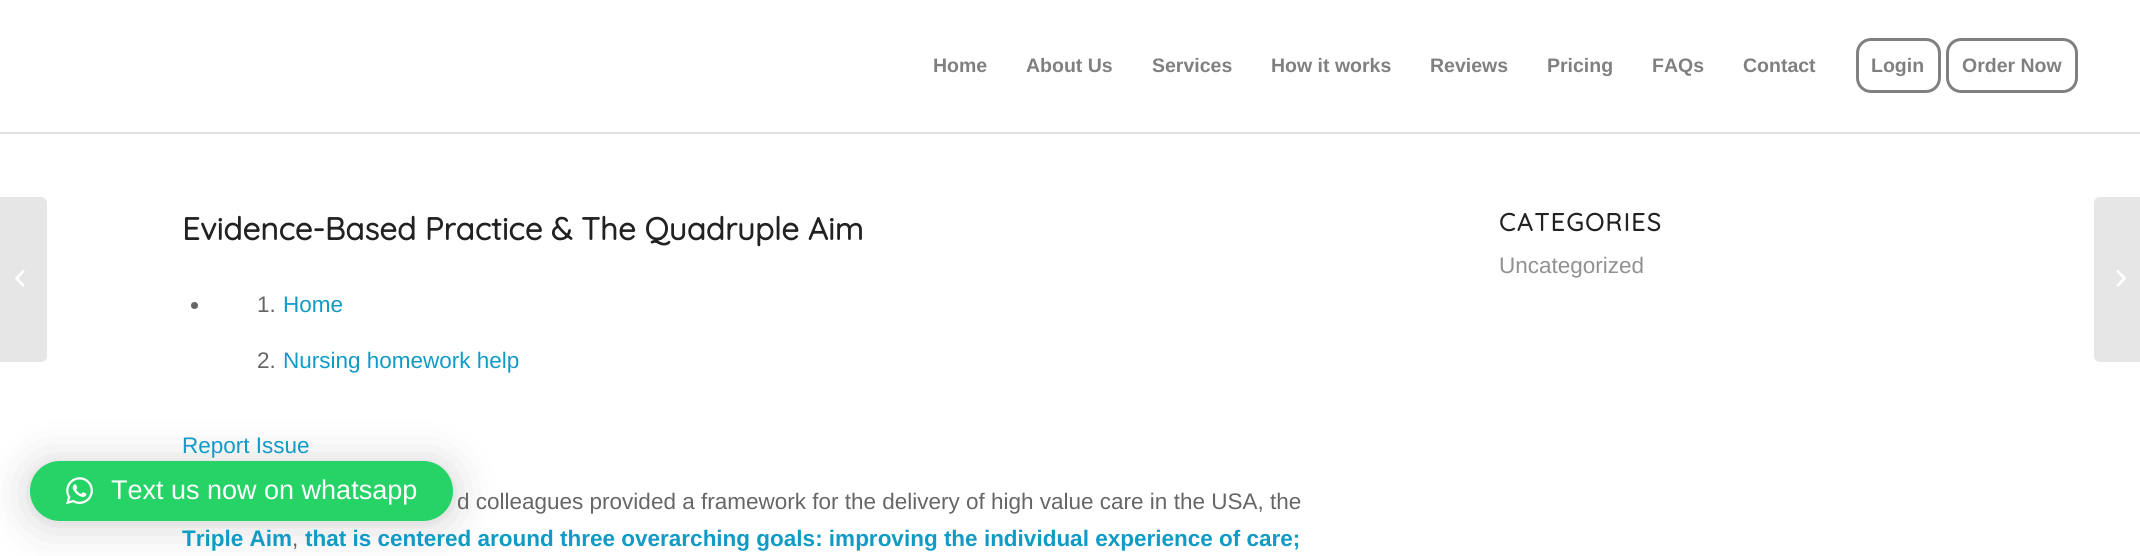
#include <cairo/cairo.h>
#include <math.h>
#include <stddef.h>

typedef struct { double x, y; const char *s; } line_t;
static cairo_t *cr;

static void rgb(unsigned color)
{
	cairo_set_source_rgb(cr, (color >> 16) / 255.0, (color >> 8 & 255) / 255.0, (color & 255) / 255.0);
}

static void tracked(double x, double y, const char *s, double letter, double word)
{
	cairo_move_to(cr, x, y);
	while (*s) {
		char ch[5] = {0};
		int n = 0;
		do ch[n++] = *s++; while ((*s & 0xC0) == 0x80);
		cairo_show_text(cr, ch);
		cairo_rel_move_to(cr, letter + word * (*ch == ' '), 0);
	}
}

static void rrect(double x, double y, double w, double h, double r)
{
	cairo_new_sub_path(cr);
	cairo_arc(cr, x + w - r, y + h - r, r, 0, M_PI / 2);
	cairo_arc(cr, x + r, y + h - r, r, M_PI / 2, M_PI);
	cairo_arc(cr, x + r, y + r, r, M_PI, 1.5 * M_PI);
	cairo_arc(cr, x + w - r, y + r, r, 1.5 * M_PI, 2 * M_PI);
	cairo_close_path(cr);
}

static void soft_shadow(double x, double y, double w, double h, double r, double blur, double alpha)
{
	cairo_push_group_with_content(cr, CAIRO_CONTENT_ALPHA);
	cairo_set_operator(cr, CAIRO_OPERATOR_SOURCE);
	for (int i = 15; i >= -15 && fmin(w, h) + blur * i / 3 > 0; i -= 2) {
		double e = blur * i / 6;
		cairo_set_source_rgba(cr, 0, 0, 0, alpha * erfc((i - 1) / 8.5) / 2);
		rrect(x - e, y - e, w + 2 * e, h + 2 * e, fmax(0, fmin(r + e + blur * .6, fmin(w, h) / 2 + e)));
		cairo_fill(cr);
	}
	cairo_pattern_t *soft = cairo_pop_group(cr);
	cairo_mask(cr, soft);
	cairo_pattern_destroy(soft);
}

static void image(const char *path, double x, double y, double w, double h)
{
	cairo_surface_t *image = cairo_image_surface_create_from_png(path);
	cairo_save(cr);
	cairo_set_source_surface(cr, image, x, y);
	cairo_rectangle(cr, x, y, w, h);
	cairo_fill(cr);
	cairo_restore(cr);
	cairo_surface_destroy(image);
}

int main(void) {
	cairo_surface_t *surface = cairo_image_surface_create(CAIRO_FORMAT_RGB24, 2140, 556);
	cr = cairo_create(surface);
	cairo_font_options_t *options = cairo_font_options_create();
	cairo_font_options_set_hint_metrics(options, CAIRO_HINT_METRICS_OFF);
	cairo_font_options_set_hint_style(options, CAIRO_HINT_STYLE_NONE);
	cairo_set_font_options(cr, options);
	cairo_set_miter_limit(cr, 4);
	rgb(0xffffff);
	cairo_paint(cr);
	rgb(0xe1e1e1);
	cairo_rectangle(cr, 0, 132, 2140, 2);
	cairo_fill(cr);
	rrect(1857.5, 39.5, 82, 52, 13.5);
	rgb(0x808080);
	cairo_set_line_width(cr, 3);
	cairo_stroke(cr);
	rrect(1947.5, 39.5, 129, 52, 13.5);
	cairo_stroke(cr);
	rgb(0xe6e6e6);
	cairo_new_path(cr);
	cairo_move_to(cr, 0, 197);
	cairo_line_to(cr, 41, 197);
	cairo_curve_to(cr, 44.5, 197, 47, 199.5, 47, 203);
	cairo_line_to(cr, 47, 356);
	cairo_curve_to(cr, 47, 359.5, 44.5, 362, 41, 362);
	cairo_line_to(cr, 0, 362);
	cairo_close_path(cr);
	cairo_fill(cr);
	image("img/1.png", 15, 270, 10, 17);
	rgb(0x666666);
	cairo_arc(cr, 194.5, 305.5, 3.5, 0, 2 * M_PI);
	cairo_fill(cr);
	rgb(0xe6e6e6);
	cairo_new_path(cr);
	cairo_move_to(cr, 2100, 197);
	cairo_line_to(cr, 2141, 197);
	cairo_line_to(cr, 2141, 362);
	cairo_line_to(cr, 2100, 362);
	cairo_curve_to(cr, 2096.5, 362, 2094, 359.5, 2094, 356);
	cairo_line_to(cr, 2094, 203);
	cairo_curve_to(cr, 2094, 199.5, 2096.5, 197, 2100, 197);
	cairo_close_path(cr);
	cairo_fill(cr);
	image("img/2.png", 2116, 270, 10, 17);
	rgb(0x000000);
	soft_shadow(30, 464, 423, 60, 30, 24, 0.16);
	soft_shadow(30, 462, 423, 60, 30, 4.5, 0.06);
	rgb(0x25d366);
	rrect(30, 461, 423, 60, 30);
	cairo_fill(cr);
	image("img/3.png", 66, 477, 27, 28);
	cairo_select_font_face(cr, "Liberation Sans", CAIRO_FONT_SLANT_NORMAL, CAIRO_FONT_WEIGHT_BOLD);
	cairo_set_font_size(cr, 19.5);
	rgb(0x808080);
	{
		static const line_t items[] = {
			{933, 72, "Home"},
			{1026, 72, "About Us"},
			{1152, 72, "Services"},
			{1271, 72, "How it works"},
			{1430, 72, "Reviews"},
			{1547, 72, "Pricing"},
			{1652, 72, "FAQs"},
			{1743, 72, "Contact"},
			{1871, 72, "Login"},
			{1962, 72, "Order Now"},
		};
		for (size_t i = 0; i < sizeof items / sizeof *items; i++) {
			cairo_move_to(cr, items[i].x, items[i].y);
			cairo_show_text(cr, items[i].s);
		}
	}
	cairo_select_font_face(cr, "Quicksand", CAIRO_FONT_SLANT_NORMAL, CAIRO_FONT_WEIGHT_BOLD);
	cairo_set_font_size(cr, 31.5);
	rgb(0x222222);
	cairo_move_to(cr, 182, 240);
	cairo_show_text(cr, "Evidence-Based Practice & The Quadruple Aim");
	cairo_select_font_face(cr, "Liberation Sans", CAIRO_FONT_SLANT_NORMAL, CAIRO_FONT_WEIGHT_NORMAL);
	cairo_set_font_size(cr, 22.5);
	rgb(0x666666);
	cairo_move_to(cr, 257, 312);
	cairo_show_text(cr, "1.");
	rgb(0x109bc5);
	cairo_move_to(cr, 283, 312);
	cairo_show_text(cr, "Home");
	rgb(0x666666);
	cairo_move_to(cr, 257, 368);
	cairo_show_text(cr, "2.");
	rgb(0x109bc5);
	cairo_move_to(cr, 283, 368);
	cairo_show_text(cr, "Nursing homework help");
	cairo_move_to(cr, 182, 453);
	cairo_show_text(cr, "Report Issue");
	rgb(0x666666);
	cairo_move_to(cr, 457, 509);
	cairo_show_text(cr, "d colleagues provided a framework for the delivery of high value care in the USA, the");
	cairo_select_font_face(cr, "Liberation Sans", CAIRO_FONT_SLANT_NORMAL, CAIRO_FONT_WEIGHT_BOLD);
	rgb(0x109bc5);
	cairo_move_to(cr, 182, 546);
	cairo_show_text(cr, "Triple Aim");
	cairo_select_font_face(cr, "Liberation Sans", CAIRO_FONT_SLANT_NORMAL, CAIRO_FONT_WEIGHT_NORMAL);
	rgb(0x666666);
	cairo_move_to(cr, 292, 546);
	cairo_show_text(cr, ",");
	cairo_select_font_face(cr, "Liberation Sans", CAIRO_FONT_SLANT_NORMAL, CAIRO_FONT_WEIGHT_BOLD);
	rgb(0x109bc5);
	cairo_move_to(cr, 305, 546);
	cairo_show_text(cr, "that is centered around three overarching goals: improving the individual experience of care;");
	cairo_select_font_face(cr, "Quicksand", CAIRO_FONT_SLANT_NORMAL, CAIRO_FONT_WEIGHT_BOLD);
	cairo_set_font_size(cr, 24.75);
	rgb(0x222222);
	tracked(1499, 231, "CATEGORIES", 1.5, 0);
	cairo_select_font_face(cr, "Liberation Sans", CAIRO_FONT_SLANT_NORMAL, CAIRO_FONT_WEIGHT_NORMAL);
	cairo_set_font_size(cr, 22.5);
	rgb(0x919191);
	cairo_move_to(cr, 1499, 273);
	cairo_show_text(cr, "Uncategorized");
	cairo_set_font_size(cr, 27);
	rgb(0xffffff);
	cairo_move_to(cr, 111, 499);
	cairo_show_text(cr, "Text us now on whatsapp");
	cairo_surface_write_to_png(surface, "page.png");
	cairo_font_options_destroy(options);
	cairo_destroy(cr);
	cairo_surface_destroy(surface);
	return 0;
}
